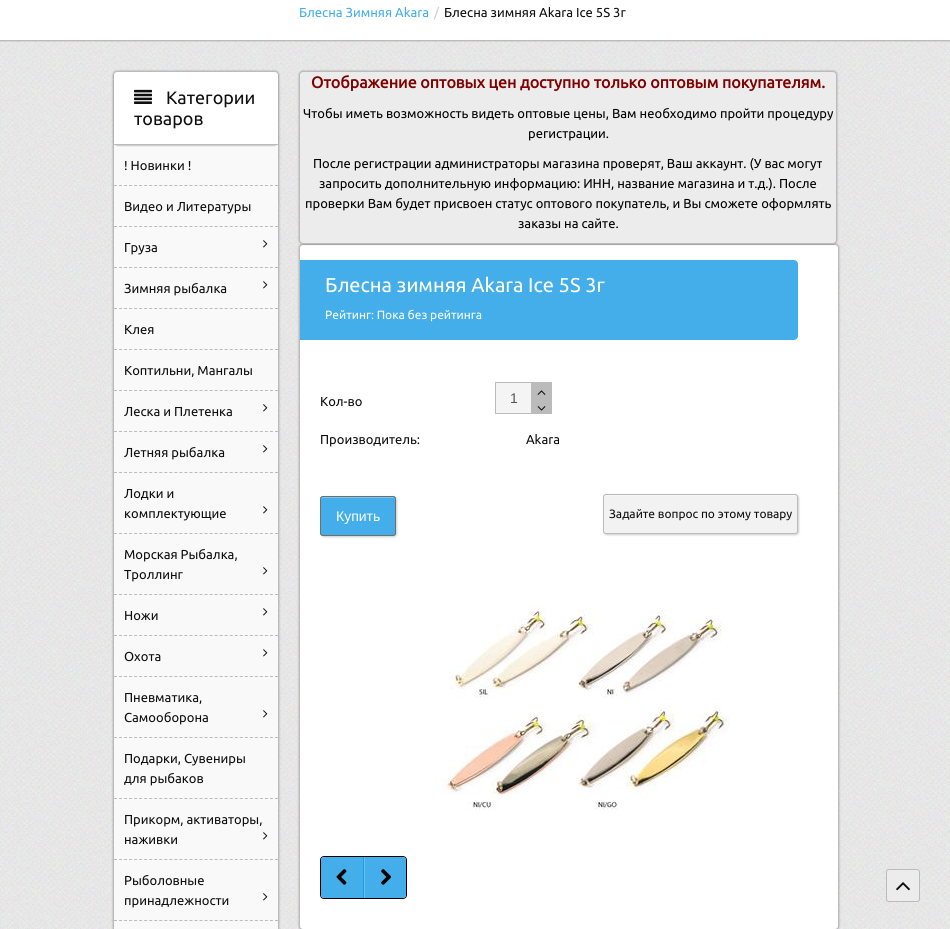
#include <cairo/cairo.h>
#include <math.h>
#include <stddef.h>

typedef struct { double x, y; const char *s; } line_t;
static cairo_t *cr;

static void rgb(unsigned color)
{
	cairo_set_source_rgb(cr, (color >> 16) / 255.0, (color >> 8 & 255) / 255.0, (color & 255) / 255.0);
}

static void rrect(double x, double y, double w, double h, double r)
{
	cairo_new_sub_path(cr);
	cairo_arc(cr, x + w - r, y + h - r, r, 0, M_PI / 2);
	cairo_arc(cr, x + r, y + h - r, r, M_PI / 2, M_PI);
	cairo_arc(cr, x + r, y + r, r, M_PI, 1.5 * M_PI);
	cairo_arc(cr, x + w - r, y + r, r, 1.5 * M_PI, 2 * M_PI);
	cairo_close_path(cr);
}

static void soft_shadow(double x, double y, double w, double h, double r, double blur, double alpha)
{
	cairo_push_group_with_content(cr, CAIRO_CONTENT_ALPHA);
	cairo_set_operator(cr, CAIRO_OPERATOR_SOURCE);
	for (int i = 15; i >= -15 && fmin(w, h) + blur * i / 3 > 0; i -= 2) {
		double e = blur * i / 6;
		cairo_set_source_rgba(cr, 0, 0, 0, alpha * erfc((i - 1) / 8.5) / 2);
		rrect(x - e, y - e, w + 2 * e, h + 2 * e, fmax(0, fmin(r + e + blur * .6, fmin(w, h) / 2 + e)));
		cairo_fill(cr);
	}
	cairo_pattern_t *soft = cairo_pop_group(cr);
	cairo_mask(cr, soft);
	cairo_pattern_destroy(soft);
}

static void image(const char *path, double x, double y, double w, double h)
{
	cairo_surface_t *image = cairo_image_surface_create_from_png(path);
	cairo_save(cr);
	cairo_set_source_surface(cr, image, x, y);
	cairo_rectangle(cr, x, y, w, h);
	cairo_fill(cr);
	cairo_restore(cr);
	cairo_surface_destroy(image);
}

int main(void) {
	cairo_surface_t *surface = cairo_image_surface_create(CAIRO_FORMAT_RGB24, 950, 929);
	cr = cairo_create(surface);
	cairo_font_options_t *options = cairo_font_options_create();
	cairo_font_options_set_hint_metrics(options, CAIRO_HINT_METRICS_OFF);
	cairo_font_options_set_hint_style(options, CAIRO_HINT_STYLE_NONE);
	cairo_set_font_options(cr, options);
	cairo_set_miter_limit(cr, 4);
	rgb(0xffffff);
	cairo_paint(cr);
	image("img/1.png", 0, 41, 950, 888);
	rgb(0x000000);
	soft_shadow(0, -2, 950, 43, 0, 0.5, 0.3);
	rgb(0xffffff);
	cairo_rectangle(cr, 0, 0, 950, 40);
	cairo_fill(cr);
	rgb(0xbbbbbb);
	cairo_rectangle(cr, 0, 40, 950, 1);
	cairo_fill(cr);
	rgb(0x000000);
	soft_shadow(113, 71, 166, 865, 4, 1, 0.3);
	rgb(0xf9f9f9);
	rrect(113.5, 71.5, 165, 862, 3.5);
	cairo_fill_preserve(cr);
	rgb(0xbbbbbb);
	cairo_set_line_width(cr, 1);
	cairo_stroke(cr);
	rgb(0x000000);
	soft_shadow(114, 73, 164, 73, 4, 0.5, 0.2);
	rgb(0xffffff);
	cairo_new_path(cr);
	cairo_move_to(cr, 118, 72);
	cairo_line_to(cr, 274, 72);
	cairo_curve_to(cr, 276, 72, 278, 74, 278, 76);
	cairo_line_to(cr, 278, 145);
	cairo_line_to(cr, 114, 145);
	cairo_line_to(cr, 114, 76);
	cairo_curve_to(cr, 114, 74, 116, 72, 118, 72);
	cairo_close_path(cr);
	cairo_fill(cr);
	rgb(0xbbbbbb);
	cairo_rectangle(cr, 114, 144, 164, 1);
	cairo_fill(cr);
	image("img/2.png", 134, 89, 18, 15);
	cairo_new_path(cr);
	cairo_move_to(cr, 114, 185.5);
	cairo_line_to(cr, 278, 185.5);
	cairo_set_dash(cr, (double[]){3, 2.03}, 2, 0);
	cairo_stroke(cr);
	cairo_new_path(cr);
	cairo_move_to(cr, 114, 226.5);
	cairo_line_to(cr, 278, 226.5);
	cairo_stroke(cr);
	cairo_new_path(cr);
	cairo_move_to(cr, 114, 267.5);
	cairo_line_to(cr, 278, 267.5);
	cairo_stroke(cr);
	image("img/3.png", 263, 240, 5, 8);
	cairo_new_path(cr);
	cairo_move_to(cr, 114, 308.5);
	cairo_line_to(cr, 278, 308.5);
	cairo_stroke(cr);
	image("img/3.png", 263, 281, 5, 8);
	cairo_new_path(cr);
	cairo_move_to(cr, 114, 349.5);
	cairo_line_to(cr, 278, 349.5);
	cairo_stroke(cr);
	cairo_new_path(cr);
	cairo_move_to(cr, 114, 390.5);
	cairo_line_to(cr, 278, 390.5);
	cairo_stroke(cr);
	cairo_new_path(cr);
	cairo_move_to(cr, 114, 431.5);
	cairo_line_to(cr, 278, 431.5);
	cairo_stroke(cr);
	image("img/3.png", 263, 404, 5, 8);
	cairo_new_path(cr);
	cairo_move_to(cr, 114, 472.5);
	cairo_line_to(cr, 278, 472.5);
	cairo_stroke(cr);
	image("img/3.png", 263, 445, 5, 8);
	cairo_new_path(cr);
	cairo_move_to(cr, 114, 533.5);
	cairo_line_to(cr, 278, 533.5);
	cairo_stroke(cr);
	image("img/3.png", 263, 506, 5, 8);
	cairo_new_path(cr);
	cairo_move_to(cr, 114, 594.5);
	cairo_line_to(cr, 278, 594.5);
	cairo_stroke(cr);
	image("img/3.png", 263, 567, 5, 8);
	cairo_new_path(cr);
	cairo_move_to(cr, 114, 635.5);
	cairo_line_to(cr, 278, 635.5);
	cairo_stroke(cr);
	image("img/3.png", 263, 608, 5, 8);
	cairo_new_path(cr);
	cairo_move_to(cr, 114, 676.5);
	cairo_line_to(cr, 278, 676.5);
	cairo_stroke(cr);
	image("img/3.png", 263, 649, 5, 8);
	cairo_new_path(cr);
	cairo_move_to(cr, 114, 737.5);
	cairo_line_to(cr, 278, 737.5);
	cairo_stroke(cr);
	image("img/3.png", 263, 710, 5, 8);
	cairo_new_path(cr);
	cairo_move_to(cr, 114, 798.5);
	cairo_line_to(cr, 278, 798.5);
	cairo_stroke(cr);
	cairo_new_path(cr);
	cairo_move_to(cr, 114, 859.5);
	cairo_line_to(cr, 278, 859.5);
	cairo_stroke(cr);
	image("img/3.png", 263, 832, 5, 8);
	cairo_new_path(cr);
	cairo_move_to(cr, 114, 920.5);
	cairo_line_to(cr, 278, 920.5);
	cairo_stroke(cr);
	image("img/3.png", 263, 893, 5, 8);
	rgb(0x000000);
	soft_shadow(299, 244, 540, 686, 4, 1, 0.3);
	rgb(0xffffff);
	rrect(299.5, 244.5, 539, 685, 3.5);
	cairo_fill_preserve(cr);
	rgb(0xbbbbbb);
	cairo_set_dash(cr, NULL, 0, 0);
	cairo_stroke(cr);
	rgb(0x000000);
	soft_shadow(299, 71, 538, 173, 4, 1, 0.3);
	rgb(0xececec);
	rrect(299.5, 71.5, 537, 172, 3.5);
	cairo_fill_preserve(cr);
	rgb(0xbbbbbb);
	cairo_stroke(cr);
	rgb(0x43aee9);
	cairo_new_path(cr);
	cairo_move_to(cr, 300, 260);
	cairo_line_to(cr, 794, 260);
	cairo_curve_to(cr, 796, 260, 798, 262, 798, 264);
	cairo_line_to(cr, 798, 336);
	cairo_curve_to(cr, 798, 338, 796, 340, 794, 340);
	cairo_line_to(cr, 300, 340);
	cairo_close_path(cr);
	cairo_fill(cr);
	rgb(0xf4f4f4);
	cairo_rectangle(cr, 496, 383, 35, 30);
	cairo_fill(cr);
	cairo_rectangle(cr, 495.5, 382.5, 37, 31);
	rgb(0xbbbbbb);
	cairo_stroke(cr);
	cairo_rectangle(cr, 531, 382, 21, 32);
	cairo_fill(cr);
	image("img/4.png", 537, 390, 9, 5);
	image("img/5.png", 537, 406, 9, 5);
	rgb(0x000000);
	soft_shadow(321, 497, 76, 40, 3, 1, 0.2);
	rgb(0x43aee9);
	rrect(320, 496, 76, 40, 3);
	cairo_fill(cr);
	rgb(0x7bc6f0);
	cairo_new_path(cr);
	cairo_move_to(cr, 323, 498);
	cairo_line_to(cr, 393, 498);
	cairo_curve_to(cr, 394, 498, 395, 499, 395, 500);
	cairo_curve_to(cr, 395, 494, 385, 497, 381, 497);
	cairo_line_to(cr, 335, 497);
	cairo_curve_to(cr, 331, 497, 321, 494, 321, 500);
	cairo_curve_to(cr, 321, 499, 322, 498, 323, 498);
	cairo_close_path(cr);
	cairo_fill(cr);
	rrect(320.5, 496.5, 75, 39, 2.5);
	rgb(0x6f6f6f);
	cairo_stroke(cr);
	rgb(0x000000);
	soft_shadow(604, 495, 195, 40, 3, 1, 0.2);
	rgb(0xf2f2f2);
	rrect(603, 494, 195, 40, 3);
	cairo_fill(cr);
	rgb(0xf6f6f6);
	cairo_new_path(cr);
	cairo_move_to(cr, 606, 496);
	cairo_line_to(cr, 795, 496);
	cairo_line_to(cr, 797, 497);
	cairo_line_to(cr, 797, 498);
	cairo_line_to(cr, 797, 497);
	cairo_curve_to(cr, 797, 496, 796, 495, 795, 495);
	cairo_line_to(cr, 606, 495);
	cairo_curve_to(cr, 605, 495, 604, 496, 604, 497);
	cairo_line_to(cr, 604, 498);
	cairo_curve_to(cr, 604, 497, 605, 496, 606, 496);
	cairo_close_path(cr);
	cairo_fill(cr);
	rrect(603.5, 494.5, 194, 39, 2.5);
	rgb(0xbbbbbb);
	cairo_stroke(cr);
	image("img/6.png", 434, 605, 296, 205);
	rrect(320.5, 856.5, 86, 42, 3.5);
	rgb(0x000000);
	cairo_stroke(cr);
	rgb(0x43aee9);
	cairo_new_path(cr);
	cairo_move_to(cr, 324, 857);
	cairo_line_to(cr, 364, 857);
	cairo_line_to(cr, 364, 898);
	cairo_line_to(cr, 324, 898);
	cairo_curve_to(cr, 322.5, 898, 321, 896.5, 321, 895);
	cairo_line_to(cr, 321, 860);
	cairo_curve_to(cr, 321, 858.5, 322.5, 857, 324, 857);
	cairo_close_path(cr);
	cairo_fill(cr);
	rgb(0x1e9ee5);
	cairo_rectangle(cr, 363, 857, 1, 41);
	cairo_fill(cr);
	image("img/7.png", 336, 869, 11, 16);
	rgb(0x43aee9);
	cairo_new_path(cr);
	cairo_move_to(cr, 364, 857);
	cairo_line_to(cr, 403, 857);
	cairo_curve_to(cr, 404.5, 857, 406, 858.5, 406, 860);
	cairo_line_to(cr, 406, 895);
	cairo_curve_to(cr, 406, 896.5, 404.5, 898, 403, 898);
	cairo_line_to(cr, 364, 898);
	cairo_close_path(cr);
	cairo_fill(cr);
	rgb(0x68beed);
	cairo_rectangle(cr, 364, 857, 1, 41);
	cairo_fill(cr);
	image("img/8.png", 381, 869, 10, 16);
	rgb(0xececec);
	rrect(886.5, 869.5, 33, 32, 2.5);
	cairo_fill_preserve(cr);
	rgb(0xbbbbbb);
	cairo_stroke(cr);
	image("img/9.png", 896, 882, 14, 9);
	cairo_select_font_face(cr, "Ubuntu", CAIRO_FONT_SLANT_NORMAL, CAIRO_FONT_WEIGHT_NORMAL);
	cairo_set_font_size(cr, 13);
	rgb(0x43aee9);
	cairo_move_to(cr, 299, 17);
	cairo_show_text(cr, "Блесна Зимняя Akara");
	rgb(0xcccccc);
	cairo_move_to(cr, 434, 17);
	cairo_show_text(cr, "/");
	rgb(0x0f0e0e);
	cairo_move_to(cr, 444, 17);
	cairo_show_text(cr, "Блесна зимняя Akara Ice 5S 3г");
	cairo_set_font_size(cr, 18);
	cairo_move_to(cr, 166, 104);
	cairo_show_text(cr, "Категории");
	cairo_move_to(cr, 134, 125);
	cairo_show_text(cr, "товаров");
	cairo_set_font_size(cr, 13);
	{
		static const line_t items[] = {
			{124, 170, "! Новинки !"},
			{124, 211, "Видео и Литературы"},
			{124, 252, "Груза"},
			{124, 293, "Зимняя рыбалка"},
			{124, 334, "Клея"},
			{124, 375, "Коптильни, Мангалы"},
			{124, 416, "Леска и Плетенка"},
			{124, 457, "Летняя рыбалка"},
			{124, 498, "Лодки и"},
			{124, 518, "комплектующие"},
			{124, 559, "Морская Рыбалка,"},
			{124, 579, "Троллинг"},
			{124, 620, "Ножи"},
			{124, 661, "Охота"},
			{124, 702, "Пневматика,"},
			{124, 722, "Самооборона"},
			{124, 763, "Подарки, Сувениры"},
			{124, 783, "для рыбаков"},
			{124, 824, "Прикорм, активаторы,"},
			{124, 844, "наживки"},
			{124, 885, "Рыболовные"},
			{124, 905, "принадлежности"},
		};
		for (size_t i = 0; i < sizeof items / sizeof *items; i++) {
			cairo_move_to(cr, items[i].x, items[i].y);
			cairo_show_text(cr, items[i].s);
		}
	}
	cairo_select_font_face(cr, "Ubuntu", CAIRO_FONT_SLANT_NORMAL, CAIRO_FONT_WEIGHT_BOLD);
	cairo_set_font_size(cr, 16);
	rgb(0x800000);
	cairo_move_to(cr, 311, 88);
	cairo_show_text(cr, "Отображение оптовых цен доступно только оптовым покупателям.");
	cairo_select_font_face(cr, "Ubuntu", CAIRO_FONT_SLANT_NORMAL, CAIRO_FONT_WEIGHT_NORMAL);
	cairo_set_font_size(cr, 13);
	rgb(0x000000);
	{
		static const line_t items[] = {
			{303, 118, "Чтобы иметь возможность видеть оптовые цены, Вам необходимо пройти процедуру"},
			{528, 138, "регистрации."},
			{313, 168, "После регистрации администраторы магазина проверят, Ваш аккаунт. (У вас могут"},
			{319, 188, "запросить дополнительную информацию: ИНН, название магазина и т.д.). После"},
			{305, 208, "проверки Вам будет присвоен статус оптового покупатель, и Вы сможете оформлять"},
			{518, 228, "заказы на сайте."},
		};
		for (size_t i = 0; i < sizeof items / sizeof *items; i++) {
			cairo_move_to(cr, items[i].x, items[i].y);
			cairo_show_text(cr, items[i].s);
		}
	}
	cairo_set_font_size(cr, 20);
	rgb(0xffffff);
	cairo_move_to(cr, 325, 292);
	cairo_show_text(cr, "Блесна зимняя Akara Ice 5S 3г");
	cairo_set_font_size(cr, 12);
	cairo_move_to(cr, 325, 319);
	cairo_show_text(cr, "Рейтинг: Пока без рейтинга");
	cairo_set_font_size(cr, 13);
	rgb(0x0f0e0e);
	cairo_move_to(cr, 320, 406);
	cairo_show_text(cr, "Кол-во");
	cairo_select_font_face(cr, "Liberation Sans", CAIRO_FONT_SLANT_NORMAL, CAIRO_FONT_WEIGHT_NORMAL);
	cairo_set_font_size(cr, 14);
	rgb(0x555555);
	cairo_move_to(cr, 510, 403);
	cairo_show_text(cr, "1");
	cairo_select_font_face(cr, "Ubuntu", CAIRO_FONT_SLANT_NORMAL, CAIRO_FONT_WEIGHT_NORMAL);
	cairo_set_font_size(cr, 13);
	rgb(0x0f0e0e);
	cairo_move_to(cr, 320, 444);
	cairo_show_text(cr, "Производитель:");
	cairo_move_to(cr, 526, 444);
	cairo_show_text(cr, "Akara");
	cairo_select_font_face(cr, "Liberation Sans", CAIRO_FONT_SLANT_NORMAL, CAIRO_FONT_WEIGHT_NORMAL);
	cairo_set_font_size(cr, 14);
	rgb(0xffffff);
	cairo_move_to(cr, 336, 521);
	cairo_show_text(cr, "Купить");
	cairo_select_font_face(cr, "Ubuntu", CAIRO_FONT_SLANT_NORMAL, CAIRO_FONT_WEIGHT_NORMAL);
	cairo_set_font_size(cr, 12);
	rgb(0x0f0e0e);
	cairo_move_to(cr, 609, 518);
	cairo_show_text(cr, "Задайте вопрос по этому товару");
	cairo_surface_write_to_png(surface, "page.png");
	cairo_font_options_destroy(options);
	cairo_destroy(cr);
	cairo_surface_destroy(surface);
	return 0;
}
